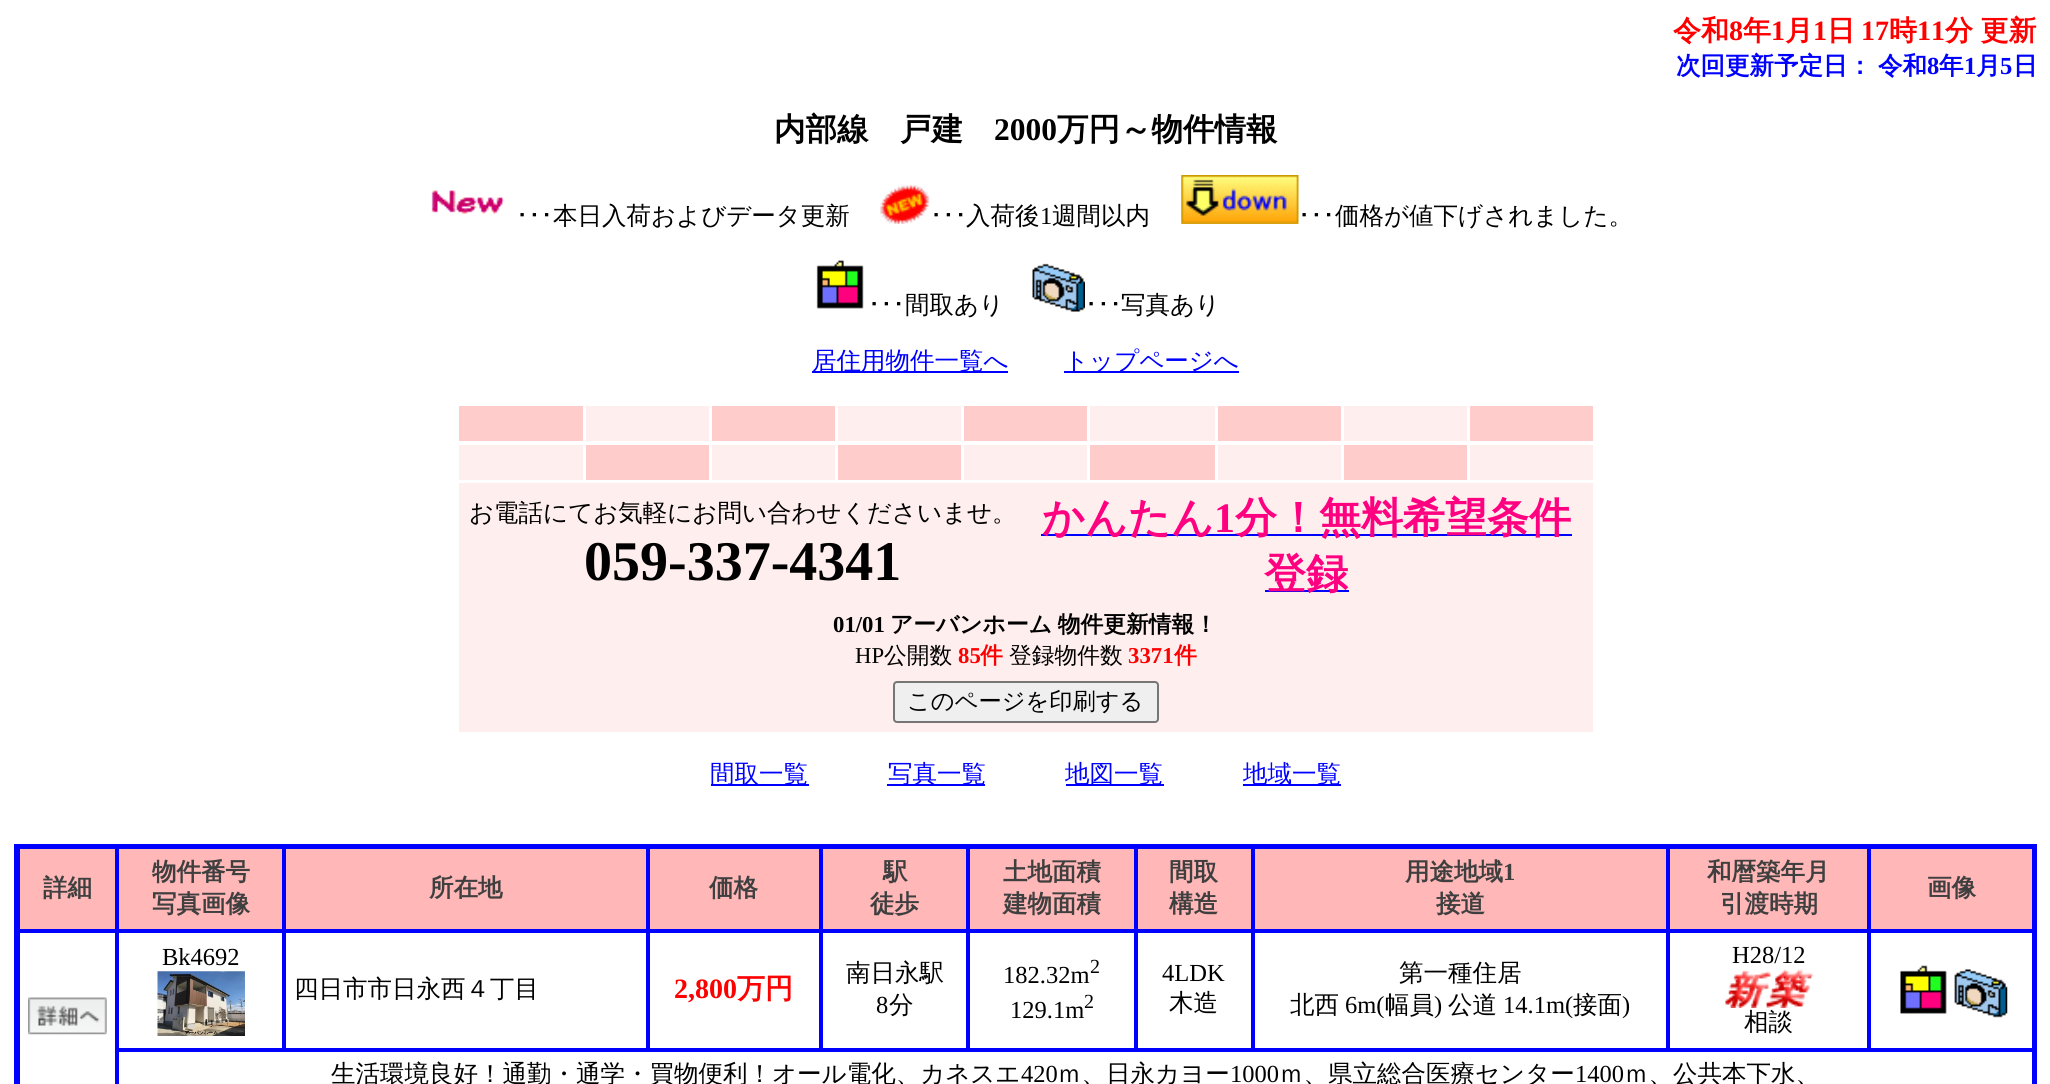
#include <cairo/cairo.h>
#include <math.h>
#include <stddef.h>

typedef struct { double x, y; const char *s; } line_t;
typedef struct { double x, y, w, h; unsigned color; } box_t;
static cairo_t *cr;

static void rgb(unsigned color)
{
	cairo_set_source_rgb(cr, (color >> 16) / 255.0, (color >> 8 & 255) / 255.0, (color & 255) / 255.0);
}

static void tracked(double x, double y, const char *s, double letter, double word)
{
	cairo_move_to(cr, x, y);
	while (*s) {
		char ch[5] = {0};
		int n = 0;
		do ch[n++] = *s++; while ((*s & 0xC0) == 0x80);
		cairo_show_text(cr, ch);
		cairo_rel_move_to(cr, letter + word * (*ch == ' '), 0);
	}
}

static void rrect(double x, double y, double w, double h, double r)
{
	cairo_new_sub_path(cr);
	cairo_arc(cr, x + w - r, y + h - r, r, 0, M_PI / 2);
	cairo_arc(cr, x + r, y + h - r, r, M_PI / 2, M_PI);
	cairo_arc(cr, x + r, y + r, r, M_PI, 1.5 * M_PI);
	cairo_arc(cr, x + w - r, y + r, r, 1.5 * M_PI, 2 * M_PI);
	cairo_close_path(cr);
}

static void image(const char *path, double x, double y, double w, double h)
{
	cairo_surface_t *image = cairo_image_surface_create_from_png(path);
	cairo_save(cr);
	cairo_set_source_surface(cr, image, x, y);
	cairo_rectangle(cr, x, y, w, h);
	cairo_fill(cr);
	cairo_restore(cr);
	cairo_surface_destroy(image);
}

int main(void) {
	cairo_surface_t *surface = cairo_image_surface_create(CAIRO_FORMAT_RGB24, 2050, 1084);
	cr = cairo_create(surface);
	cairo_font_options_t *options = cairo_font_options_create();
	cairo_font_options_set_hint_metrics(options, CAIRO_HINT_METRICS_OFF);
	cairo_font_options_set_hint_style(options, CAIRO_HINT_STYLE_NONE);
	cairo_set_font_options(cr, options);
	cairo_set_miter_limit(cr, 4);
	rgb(0xffffff);
	cairo_paint(cr);
	image("img/1.png", 431, 190, 74, 24);
	image("img/2.png", 880, 185, 50, 39);
	image("img/3.png", 1181, 175, 118, 49);
	image("img/4.png", 816, 260, 48, 49);
	image("img/5.png", 1032, 263, 53, 49);
	{
		static const box_t items[] = {
			{812, 371, 196, 2, 0x0000ff},
			{1064, 371, 175, 2, 0x0000ff},
			{459, 406, 124, 35, 0xffcccc},
			{586, 406, 123, 35, 0xffeeee},
			{712, 406, 123, 35, 0xffcccc},
			{838, 406, 123, 35, 0xffeeee},
			{964, 406, 123, 35, 0xffcccc},
			{1090, 406, 125, 35, 0xffeeee},
			{1218, 406, 123, 35, 0xffcccc},
			{1344, 406, 123, 35, 0xffeeee},
			{1470, 406, 123, 35, 0xffcccc},
			{459, 445, 124, 35, 0xffeeee},
			{586, 445, 123, 35, 0xffcccc},
			{712, 445, 123, 35, 0xffeeee},
			{838, 445, 123, 35, 0xffcccc},
			{964, 445, 123, 35, 0xffeeee},
			{1090, 445, 125, 35, 0xffcccc},
			{1218, 445, 123, 35, 0xffeeee},
			{1344, 445, 123, 35, 0xffcccc},
			{1470, 445, 123, 35, 0xffeeee},
			{459, 483, 1134, 249, 0xffeeee},
			{1041, 534, 531, 2, 0x0000ff},
			{1265, 590, 84, 2, 0x0000ff},
		};
		for (size_t i = 0; i < sizeof items / sizeof *items; i++) {
			rgb(items[i].color);
			cairo_rectangle(cr, items[i].x, items[i].y, items[i].w, items[i].h);
			cairo_fill(cr);
		}
	}
	rgb(0xefefef);
	rrect(894, 682, 264, 40, 3);
	cairo_fill_preserve(cr);
	rgb(0x767676);
	cairo_stroke(cr);
	{
		static const box_t items[] = {
			{711, 784, 98, 2, 0x0000ff},
			{887, 784, 98, 2, 0x0000ff},
			{1066, 784, 98, 2, 0x0000ff},
			{1243, 784, 98, 2, 0x0000ff},
		};
		for (size_t i = 0; i < sizeof items / sizeof *items; i++) {
			rgb(items[i].color);
			cairo_rectangle(cr, items[i].x, items[i].y, items[i].w, items[i].h);
			cairo_fill(cr);
		}
	}
	cairo_rectangle(cr, 16, 846, 2019, 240);
	cairo_set_line_width(cr, 4);
	cairo_stroke(cr);
	rgb(0xffb7b7);
	cairo_rectangle(cr, 19, 848, 97, 82);
	cairo_fill_preserve(cr);
	rgb(0x0000ff);
	cairo_set_line_width(cr, 2);
	cairo_stroke(cr);
	rgb(0xffb7b7);
	cairo_rectangle(cr, 118, 848, 165, 82);
	cairo_fill_preserve(cr);
	rgb(0x0000ff);
	cairo_stroke(cr);
	rgb(0xffb7b7);
	cairo_rectangle(cr, 285, 848, 362, 82);
	cairo_fill_preserve(cr);
	rgb(0x0000ff);
	cairo_stroke(cr);
	rgb(0xffb7b7);
	cairo_rectangle(cr, 649, 848, 171, 82);
	cairo_fill_preserve(cr);
	rgb(0x0000ff);
	cairo_stroke(cr);
	rgb(0xffb7b7);
	cairo_rectangle(cr, 822, 848, 145, 82);
	cairo_fill_preserve(cr);
	rgb(0x0000ff);
	cairo_stroke(cr);
	rgb(0xffb7b7);
	cairo_rectangle(cr, 969, 848, 166, 82);
	cairo_fill_preserve(cr);
	rgb(0x0000ff);
	cairo_stroke(cr);
	rgb(0xffb7b7);
	cairo_rectangle(cr, 1137, 848, 115, 82);
	cairo_fill_preserve(cr);
	rgb(0x0000ff);
	cairo_stroke(cr);
	rgb(0xffb7b7);
	cairo_rectangle(cr, 1254, 848, 413, 82);
	cairo_fill_preserve(cr);
	rgb(0x0000ff);
	cairo_stroke(cr);
	rgb(0xffb7b7);
	cairo_rectangle(cr, 1669, 848, 199, 82);
	cairo_fill_preserve(cr);
	rgb(0x0000ff);
	cairo_stroke(cr);
	rgb(0xffb7b7);
	cairo_rectangle(cr, 1870, 848, 163, 82);
	cairo_fill_preserve(cr);
	rgb(0x0000ff);
	cairo_stroke(cr);
	cairo_rectangle(cr, 19, 932, 97, 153);
	cairo_stroke(cr);
	image("img/6.png", 28, 997, 79, 38);
	cairo_rectangle(cr, 118, 932, 165, 117);
	cairo_stroke(cr);
	image("img/7.png", 157, 971, 88, 65);
	cairo_rectangle(cr, 1669, 932, 199, 117);
	cairo_stroke(cr);
	image("img/8.png", 1725, 969, 88, 39);
	cairo_rectangle(cr, 1870, 932, 163, 117);
	cairo_stroke(cr);
	image("img/9.png", 1900, 965, 47, 49);
	image("img/10.png", 1954, 969, 54, 49);
	cairo_rectangle(cr, 285, 932, 362, 117);
	cairo_stroke(cr);
	cairo_rectangle(cr, 649, 932, 171, 117);
	cairo_stroke(cr);
	cairo_rectangle(cr, 822, 932, 145, 117);
	cairo_stroke(cr);
	cairo_rectangle(cr, 969, 932, 166, 117);
	cairo_stroke(cr);
	cairo_rectangle(cr, 1137, 932, 115, 117);
	cairo_stroke(cr);
	cairo_rectangle(cr, 1254, 932, 413, 117);
	cairo_stroke(cr);
	cairo_rectangle(cr, 118, 1051, 1915, 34);
	cairo_stroke(cr);
	cairo_select_font_face(cr, "WenQuanYi Zen Hei", CAIRO_FONT_SLANT_NORMAL, CAIRO_FONT_WEIGHT_BOLD);
	cairo_set_font_size(cr, 28);
	rgb(0xff0000);
	cairo_move_to(cr, 1673, 40);
	cairo_show_text(cr, "令和");
	cairo_select_font_face(cr, "Liberation Serif", CAIRO_FONT_SLANT_NORMAL, CAIRO_FONT_WEIGHT_BOLD);
	cairo_move_to(cr, 1729, 40);
	cairo_show_text(cr, "8");
	cairo_select_font_face(cr, "WenQuanYi Zen Hei", CAIRO_FONT_SLANT_NORMAL, CAIRO_FONT_WEIGHT_BOLD);
	cairo_move_to(cr, 1743, 40);
	cairo_show_text(cr, "年");
	cairo_select_font_face(cr, "Liberation Serif", CAIRO_FONT_SLANT_NORMAL, CAIRO_FONT_WEIGHT_BOLD);
	cairo_move_to(cr, 1771, 40);
	cairo_show_text(cr, "1");
	cairo_select_font_face(cr, "WenQuanYi Zen Hei", CAIRO_FONT_SLANT_NORMAL, CAIRO_FONT_WEIGHT_BOLD);
	cairo_move_to(cr, 1785, 40);
	cairo_show_text(cr, "月");
	cairo_select_font_face(cr, "Liberation Serif", CAIRO_FONT_SLANT_NORMAL, CAIRO_FONT_WEIGHT_BOLD);
	cairo_move_to(cr, 1813, 40);
	cairo_show_text(cr, "1");
	cairo_select_font_face(cr, "WenQuanYi Zen Hei", CAIRO_FONT_SLANT_NORMAL, CAIRO_FONT_WEIGHT_BOLD);
	cairo_move_to(cr, 1827, 40);
	cairo_show_text(cr, "日");
	cairo_select_font_face(cr, "Liberation Serif", CAIRO_FONT_SLANT_NORMAL, CAIRO_FONT_WEIGHT_BOLD);
	cairo_move_to(cr, 1861, 40);
	cairo_show_text(cr, "17");
	cairo_select_font_face(cr, "WenQuanYi Zen Hei", CAIRO_FONT_SLANT_NORMAL, CAIRO_FONT_WEIGHT_BOLD);
	cairo_move_to(cr, 1889, 40);
	cairo_show_text(cr, "時");
	cairo_select_font_face(cr, "Liberation Serif", CAIRO_FONT_SLANT_NORMAL, CAIRO_FONT_WEIGHT_BOLD);
	cairo_move_to(cr, 1917, 40);
	cairo_show_text(cr, "11");
	cairo_select_font_face(cr, "WenQuanYi Zen Hei", CAIRO_FONT_SLANT_NORMAL, CAIRO_FONT_WEIGHT_BOLD);
	tracked(1945, 40, "分 更新", 0, -1);
	cairo_set_font_size(cr, 24.5);
	rgb(0x0000ff);
	cairo_move_to(cr, 1676, 74);
	cairo_show_text(cr, "次回更新予定日：");
	cairo_move_to(cr, 1878, 74);
	cairo_show_text(cr, "令和");
	cairo_select_font_face(cr, "Liberation Serif", CAIRO_FONT_SLANT_NORMAL, CAIRO_FONT_WEIGHT_BOLD);
	cairo_move_to(cr, 1927, 74);
	cairo_show_text(cr, "8");
	cairo_select_font_face(cr, "WenQuanYi Zen Hei", CAIRO_FONT_SLANT_NORMAL, CAIRO_FONT_WEIGHT_BOLD);
	cairo_move_to(cr, 1939, 74);
	cairo_show_text(cr, "年");
	cairo_select_font_face(cr, "Liberation Serif", CAIRO_FONT_SLANT_NORMAL, CAIRO_FONT_WEIGHT_BOLD);
	cairo_move_to(cr, 1964, 74);
	cairo_show_text(cr, "1");
	cairo_select_font_face(cr, "WenQuanYi Zen Hei", CAIRO_FONT_SLANT_NORMAL, CAIRO_FONT_WEIGHT_BOLD);
	cairo_move_to(cr, 1976, 74);
	cairo_show_text(cr, "月");
	cairo_select_font_face(cr, "Liberation Serif", CAIRO_FONT_SLANT_NORMAL, CAIRO_FONT_WEIGHT_BOLD);
	cairo_move_to(cr, 2000, 74);
	cairo_show_text(cr, "5");
	cairo_select_font_face(cr, "WenQuanYi Zen Hei", CAIRO_FONT_SLANT_NORMAL, CAIRO_FONT_WEIGHT_BOLD);
	cairo_move_to(cr, 2013, 74);
	cairo_show_text(cr, "日");
	cairo_set_font_size(cr, 31.5);
	rgb(0x000000);
	cairo_move_to(cr, 774, 140);
	cairo_show_text(cr, "内部線　戸建");
	cairo_select_font_face(cr, "Liberation Serif", CAIRO_FONT_SLANT_NORMAL, CAIRO_FONT_WEIGHT_BOLD);
	cairo_move_to(cr, 994, 140);
	cairo_show_text(cr, "2000");
	cairo_select_font_face(cr, "WenQuanYi Zen Hei", CAIRO_FONT_SLANT_NORMAL, CAIRO_FONT_WEIGHT_BOLD);
	cairo_move_to(cr, 1057, 140);
	cairo_show_text(cr, "万円～物件情報");
	cairo_select_font_face(cr, "IPAPGothic", CAIRO_FONT_SLANT_NORMAL, CAIRO_FONT_WEIGHT_NORMAL);
	cairo_set_font_size(cr, 24.5);
	cairo_move_to(cr, 516, 224);
	cairo_show_text(cr, "･･･");
	cairo_select_font_face(cr, "WenQuanYi Zen Hei Medium", CAIRO_FONT_SLANT_NORMAL, CAIRO_FONT_WEIGHT_NORMAL);
	cairo_move_to(cr, 553, 224);
	cairo_show_text(cr, "本日入荷およびデータ更新");
	cairo_select_font_face(cr, "IPAPGothic", CAIRO_FONT_SLANT_NORMAL, CAIRO_FONT_WEIGHT_NORMAL);
	cairo_move_to(cr, 930, 224);
	cairo_show_text(cr, "･･･");
	cairo_select_font_face(cr, "WenQuanYi Zen Hei Medium", CAIRO_FONT_SLANT_NORMAL, CAIRO_FONT_WEIGHT_NORMAL);
	cairo_move_to(cr, 966, 224);
	cairo_show_text(cr, "入荷後");
	cairo_select_font_face(cr, "Liberation Serif", CAIRO_FONT_SLANT_NORMAL, CAIRO_FONT_WEIGHT_NORMAL);
	cairo_move_to(cr, 1040, 224);
	cairo_show_text(cr, "1");
	cairo_select_font_face(cr, "WenQuanYi Zen Hei Medium", CAIRO_FONT_SLANT_NORMAL, CAIRO_FONT_WEIGHT_NORMAL);
	cairo_move_to(cr, 1052, 224);
	cairo_show_text(cr, "週間以内");
	cairo_select_font_face(cr, "IPAPGothic", CAIRO_FONT_SLANT_NORMAL, CAIRO_FONT_WEIGHT_NORMAL);
	cairo_move_to(cr, 1298, 224);
	cairo_show_text(cr, "･･･");
	cairo_select_font_face(cr, "WenQuanYi Zen Hei Medium", CAIRO_FONT_SLANT_NORMAL, CAIRO_FONT_WEIGHT_NORMAL);
	cairo_move_to(cr, 1335, 224);
	cairo_show_text(cr, "価格が値下げされました。");
	cairo_select_font_face(cr, "IPAPGothic", CAIRO_FONT_SLANT_NORMAL, CAIRO_FONT_WEIGHT_NORMAL);
	cairo_move_to(cr, 868, 313);
	cairo_show_text(cr, "･･･");
	cairo_select_font_face(cr, "WenQuanYi Zen Hei Medium", CAIRO_FONT_SLANT_NORMAL, CAIRO_FONT_WEIGHT_NORMAL);
	cairo_move_to(cr, 905, 313);
	cairo_show_text(cr, "間取あり");
	cairo_select_font_face(cr, "IPAPGothic", CAIRO_FONT_SLANT_NORMAL, CAIRO_FONT_WEIGHT_NORMAL);
	cairo_move_to(cr, 1085, 313);
	cairo_show_text(cr, "･･･");
	cairo_select_font_face(cr, "WenQuanYi Zen Hei Medium", CAIRO_FONT_SLANT_NORMAL, CAIRO_FONT_WEIGHT_NORMAL);
	cairo_move_to(cr, 1121, 313);
	cairo_show_text(cr, "写真あり");
	rgb(0x0000ff);
	cairo_move_to(cr, 812, 369);
	cairo_show_text(cr, "居住用物件一覧へ");
	cairo_move_to(cr, 1064, 369);
	cairo_show_text(cr, "トップページへ");
	rgb(0x000000);
	cairo_move_to(cr, 469, 521);
	cairo_show_text(cr, "お電話にてお気軽にお問い合わせくださいませ。");
	cairo_select_font_face(cr, "Liberation Serif", CAIRO_FONT_SLANT_NORMAL, CAIRO_FONT_WEIGHT_BOLD);
	cairo_set_font_size(cr, 56);
	cairo_move_to(cr, 584, 580);
	cairo_show_text(cr, "059-337-4341");
	cairo_select_font_face(cr, "WenQuanYi Zen Hei", CAIRO_FONT_SLANT_NORMAL, CAIRO_FONT_WEIGHT_BOLD);
	cairo_set_font_size(cr, 42);
	rgb(0xff0080);
	cairo_move_to(cr, 1042, 532);
	cairo_show_text(cr, "かんたん");
	cairo_select_font_face(cr, "Liberation Serif", CAIRO_FONT_SLANT_NORMAL, CAIRO_FONT_WEIGHT_BOLD);
	cairo_move_to(cr, 1214, 532);
	cairo_show_text(cr, "1");
	cairo_select_font_face(cr, "WenQuanYi Zen Hei", CAIRO_FONT_SLANT_NORMAL, CAIRO_FONT_WEIGHT_BOLD);
	cairo_move_to(cr, 1235, 532);
	cairo_show_text(cr, "分！無料希望条件");
	cairo_move_to(cr, 1264, 588);
	cairo_show_text(cr, "登録");
	cairo_select_font_face(cr, "Liberation Serif", CAIRO_FONT_SLANT_NORMAL, CAIRO_FONT_WEIGHT_BOLD);
	cairo_set_font_size(cr, 22.75);
	rgb(0x000000);
	cairo_move_to(cr, 833, 632);
	cairo_show_text(cr, "01/01");
	cairo_select_font_face(cr, "WenQuanYi Zen Hei", CAIRO_FONT_SLANT_NORMAL, CAIRO_FONT_WEIGHT_BOLD);
	tracked(890, 632, "アーバンホーム 物件更新情報！", 0, -1);
	cairo_select_font_face(cr, "Liberation Serif", CAIRO_FONT_SLANT_NORMAL, CAIRO_FONT_WEIGHT_NORMAL);
	cairo_move_to(cr, 855, 663);
	cairo_show_text(cr, "HP");
	cairo_select_font_face(cr, "WenQuanYi Zen Hei Medium", CAIRO_FONT_SLANT_NORMAL, CAIRO_FONT_WEIGHT_NORMAL);
	cairo_move_to(cr, 884, 663);
	cairo_show_text(cr, "公開数");
	cairo_select_font_face(cr, "Liberation Serif", CAIRO_FONT_SLANT_NORMAL, CAIRO_FONT_WEIGHT_BOLD);
	rgb(0xff0000);
	cairo_move_to(cr, 958, 663);
	cairo_show_text(cr, "85");
	cairo_select_font_face(cr, "WenQuanYi Zen Hei", CAIRO_FONT_SLANT_NORMAL, CAIRO_FONT_WEIGHT_BOLD);
	cairo_move_to(cr, 980, 663);
	cairo_show_text(cr, "件");
	cairo_select_font_face(cr, "WenQuanYi Zen Hei Medium", CAIRO_FONT_SLANT_NORMAL, CAIRO_FONT_WEIGHT_NORMAL);
	rgb(0x000000);
	cairo_move_to(cr, 1009, 663);
	cairo_show_text(cr, "登録物件数");
	cairo_select_font_face(cr, "Liberation Serif", CAIRO_FONT_SLANT_NORMAL, CAIRO_FONT_WEIGHT_BOLD);
	rgb(0xff0000);
	cairo_move_to(cr, 1128, 663);
	cairo_show_text(cr, "3371");
	cairo_select_font_face(cr, "WenQuanYi Zen Hei", CAIRO_FONT_SLANT_NORMAL, CAIRO_FONT_WEIGHT_BOLD);
	cairo_move_to(cr, 1174, 663);
	cairo_show_text(cr, "件");
	cairo_select_font_face(cr, "WenQuanYi Zen Hei Medium", CAIRO_FONT_SLANT_NORMAL, CAIRO_FONT_WEIGHT_NORMAL);
	cairo_set_font_size(cr, 23.25);
	rgb(0x000000);
	cairo_move_to(cr, 907, 709);
	cairo_show_text(cr, "このページを印刷する");
	cairo_set_font_size(cr, 24.5);
	rgb(0x0000ff);
	{
		static const line_t items[] = {
			{710, 782, "間取一覧"},
			{888, 782, "写真一覧"},
			{1065, 782, "地図一覧"},
			{1243, 782, "地域一覧"},
		};
		for (size_t i = 0; i < sizeof items / sizeof *items; i++) {
			cairo_move_to(cr, items[i].x, items[i].y);
			cairo_show_text(cr, items[i].s);
		}
	}
	cairo_select_font_face(cr, "WenQuanYi Zen Hei", CAIRO_FONT_SLANT_NORMAL, CAIRO_FONT_WEIGHT_BOLD);
	rgb(0x3f3f3f);
	{
		static const line_t items[] = {
			{43, 896, "詳細"},
			{152, 880, "物件番号"},
			{152, 912, "写真画像"},
			{429, 896, "所在地"},
			{709, 896, "価格"},
			{883, 880, "駅"},
			{870, 912, "徒歩"},
			{1003, 880, "土地面積"},
			{1003, 912, "建物面積"},
			{1169, 880, "間取"},
			{1169, 912, "構造"},
			{1405, 880, "用途地域"},
		};
		for (size_t i = 0; i < sizeof items / sizeof *items; i++) {
			cairo_move_to(cr, items[i].x, items[i].y);
			cairo_show_text(cr, items[i].s);
		}
	}
	cairo_select_font_face(cr, "Liberation Serif", CAIRO_FONT_SLANT_NORMAL, CAIRO_FONT_WEIGHT_BOLD);
	cairo_move_to(cr, 1503, 880);
	cairo_show_text(cr, "1");
	cairo_select_font_face(cr, "WenQuanYi Zen Hei", CAIRO_FONT_SLANT_NORMAL, CAIRO_FONT_WEIGHT_BOLD);
	{
		static const line_t items[] = {
			{1436, 912, "接道"},
			{1707, 880, "和暦築年月"},
			{1720, 912, "引渡時期"},
			{1927, 896, "画像"},
		};
		for (size_t i = 0; i < sizeof items / sizeof *items; i++) {
			cairo_move_to(cr, items[i].x, items[i].y);
			cairo_show_text(cr, items[i].s);
		}
	}
	cairo_select_font_face(cr, "Liberation Serif", CAIRO_FONT_SLANT_NORMAL, CAIRO_FONT_WEIGHT_NORMAL);
	rgb(0x000000);
	cairo_move_to(cr, 162, 965);
	cairo_show_text(cr, "Bk4692");
	cairo_move_to(cr, 1732, 963);
	cairo_show_text(cr, "H28/12");
	cairo_select_font_face(cr, "WenQuanYi Zen Hei Medium", CAIRO_FONT_SLANT_NORMAL, CAIRO_FONT_WEIGHT_NORMAL);
	cairo_move_to(cr, 1744, 1030);
	cairo_show_text(cr, "相談");
	cairo_move_to(cr, 294, 997);
	cairo_show_text(cr, "四日市市日永西４丁目");
	cairo_select_font_face(cr, "Liberation Serif", CAIRO_FONT_SLANT_NORMAL, CAIRO_FONT_WEIGHT_BOLD);
	cairo_set_font_size(cr, 28);
	rgb(0xff0000);
	cairo_move_to(cr, 674, 998);
	cairo_show_text(cr, "2,800");
	cairo_select_font_face(cr, "WenQuanYi Zen Hei", CAIRO_FONT_SLANT_NORMAL, CAIRO_FONT_WEIGHT_BOLD);
	cairo_move_to(cr, 737, 998);
	cairo_show_text(cr, "万円");
	cairo_select_font_face(cr, "WenQuanYi Zen Hei Medium", CAIRO_FONT_SLANT_NORMAL, CAIRO_FONT_WEIGHT_NORMAL);
	cairo_set_font_size(cr, 24.5);
	rgb(0x000000);
	cairo_move_to(cr, 846, 981);
	cairo_show_text(cr, "南日永駅");
	cairo_select_font_face(cr, "Liberation Serif", CAIRO_FONT_SLANT_NORMAL, CAIRO_FONT_WEIGHT_NORMAL);
	cairo_move_to(cr, 876, 1013);
	cairo_show_text(cr, "8");
	cairo_select_font_face(cr, "WenQuanYi Zen Hei Medium", CAIRO_FONT_SLANT_NORMAL, CAIRO_FONT_WEIGHT_NORMAL);
	cairo_move_to(cr, 889, 1013);
	cairo_show_text(cr, "分");
	cairo_select_font_face(cr, "Liberation Serif", CAIRO_FONT_SLANT_NORMAL, CAIRO_FONT_WEIGHT_NORMAL);
	cairo_move_to(cr, 1003, 983);
	cairo_show_text(cr, "182.32m");
	cairo_set_font_size(cr, 20);
	cairo_move_to(cr, 1090, 973);
	cairo_show_text(cr, "2");
	cairo_set_font_size(cr, 24.5);
	cairo_move_to(cr, 1010, 1018);
	cairo_show_text(cr, "129.1m");
	cairo_set_font_size(cr, 20);
	cairo_move_to(cr, 1084, 1008);
	cairo_show_text(cr, "2");
	cairo_set_font_size(cr, 24.5);
	cairo_move_to(cr, 1162, 981);
	cairo_show_text(cr, "4LDK");
	cairo_select_font_face(cr, "WenQuanYi Zen Hei Medium", CAIRO_FONT_SLANT_NORMAL, CAIRO_FONT_WEIGHT_NORMAL);
	{
		static const line_t items[] = {
			{1169, 1011, "木造"},
			{1399, 981, "第一種住居"},
			{1290, 1013, "北西"},
		};
		for (size_t i = 0; i < sizeof items / sizeof *items; i++) {
			cairo_move_to(cr, items[i].x, items[i].y);
			cairo_show_text(cr, items[i].s);
		}
	}
	cairo_select_font_face(cr, "Liberation Serif", CAIRO_FONT_SLANT_NORMAL, CAIRO_FONT_WEIGHT_NORMAL);
	cairo_move_to(cr, 1345, 1013);
	cairo_show_text(cr, "6m(");
	cairo_select_font_face(cr, "WenQuanYi Zen Hei Medium", CAIRO_FONT_SLANT_NORMAL, CAIRO_FONT_WEIGHT_NORMAL);
	cairo_move_to(cr, 1385, 1013);
	cairo_show_text(cr, "幅員");
	cairo_select_font_face(cr, "Liberation Serif", CAIRO_FONT_SLANT_NORMAL, CAIRO_FONT_WEIGHT_NORMAL);
	cairo_move_to(cr, 1434, 1013);
	cairo_show_text(cr, ")");
	cairo_select_font_face(cr, "WenQuanYi Zen Hei Medium", CAIRO_FONT_SLANT_NORMAL, CAIRO_FONT_WEIGHT_NORMAL);
	cairo_move_to(cr, 1448, 1013);
	cairo_show_text(cr, "公道");
	cairo_select_font_face(cr, "Liberation Serif", CAIRO_FONT_SLANT_NORMAL, CAIRO_FONT_WEIGHT_NORMAL);
	cairo_move_to(cr, 1503, 1013);
	cairo_show_text(cr, "14.1m(");
	cairo_select_font_face(cr, "WenQuanYi Zen Hei Medium", CAIRO_FONT_SLANT_NORMAL, CAIRO_FONT_WEIGHT_NORMAL);
	cairo_move_to(cr, 1573, 1013);
	cairo_show_text(cr, "接面");
	cairo_select_font_face(cr, "Liberation Serif", CAIRO_FONT_SLANT_NORMAL, CAIRO_FONT_WEIGHT_NORMAL);
	cairo_move_to(cr, 1622, 1013);
	cairo_show_text(cr, ")");
	cairo_select_font_face(cr, "WenQuanYi Zen Hei Medium", CAIRO_FONT_SLANT_NORMAL, CAIRO_FONT_WEIGHT_NORMAL);
	cairo_move_to(cr, 331, 1082);
	cairo_show_text(cr, "生活環境良好！通勤・通学・買物便利！オール電化、カネスエ");
	cairo_select_font_face(cr, "Liberation Serif", CAIRO_FONT_SLANT_NORMAL, CAIRO_FONT_WEIGHT_NORMAL);
	cairo_move_to(cr, 1021, 1082);
	cairo_show_text(cr, "420");
	cairo_select_font_face(cr, "WenQuanYi Zen Hei Medium", CAIRO_FONT_SLANT_NORMAL, CAIRO_FONT_WEIGHT_NORMAL);
	cairo_move_to(cr, 1057, 1082);
	cairo_show_text(cr, "ｍ、日永カヨー");
	cairo_select_font_face(cr, "Liberation Serif", CAIRO_FONT_SLANT_NORMAL, CAIRO_FONT_WEIGHT_NORMAL);
	cairo_move_to(cr, 1230, 1082);
	cairo_show_text(cr, "1000");
	cairo_select_font_face(cr, "WenQuanYi Zen Hei Medium", CAIRO_FONT_SLANT_NORMAL, CAIRO_FONT_WEIGHT_NORMAL);
	cairo_move_to(cr, 1279, 1082);
	cairo_show_text(cr, "ｍ、県立総合医療センター");
	cairo_select_font_face(cr, "Liberation Serif", CAIRO_FONT_SLANT_NORMAL, CAIRO_FONT_WEIGHT_NORMAL);
	cairo_move_to(cr, 1575, 1082);
	cairo_show_text(cr, "1400");
	cairo_select_font_face(cr, "WenQuanYi Zen Hei Medium", CAIRO_FONT_SLANT_NORMAL, CAIRO_FONT_WEIGHT_NORMAL);
	cairo_move_to(cr, 1624, 1082);
	cairo_show_text(cr, "ｍ、公共本下水、");
	cairo_surface_write_to_png(surface, "page.png");
	cairo_font_options_destroy(options);
	cairo_destroy(cr);
	cairo_surface_destroy(surface);
	return 0;
}
